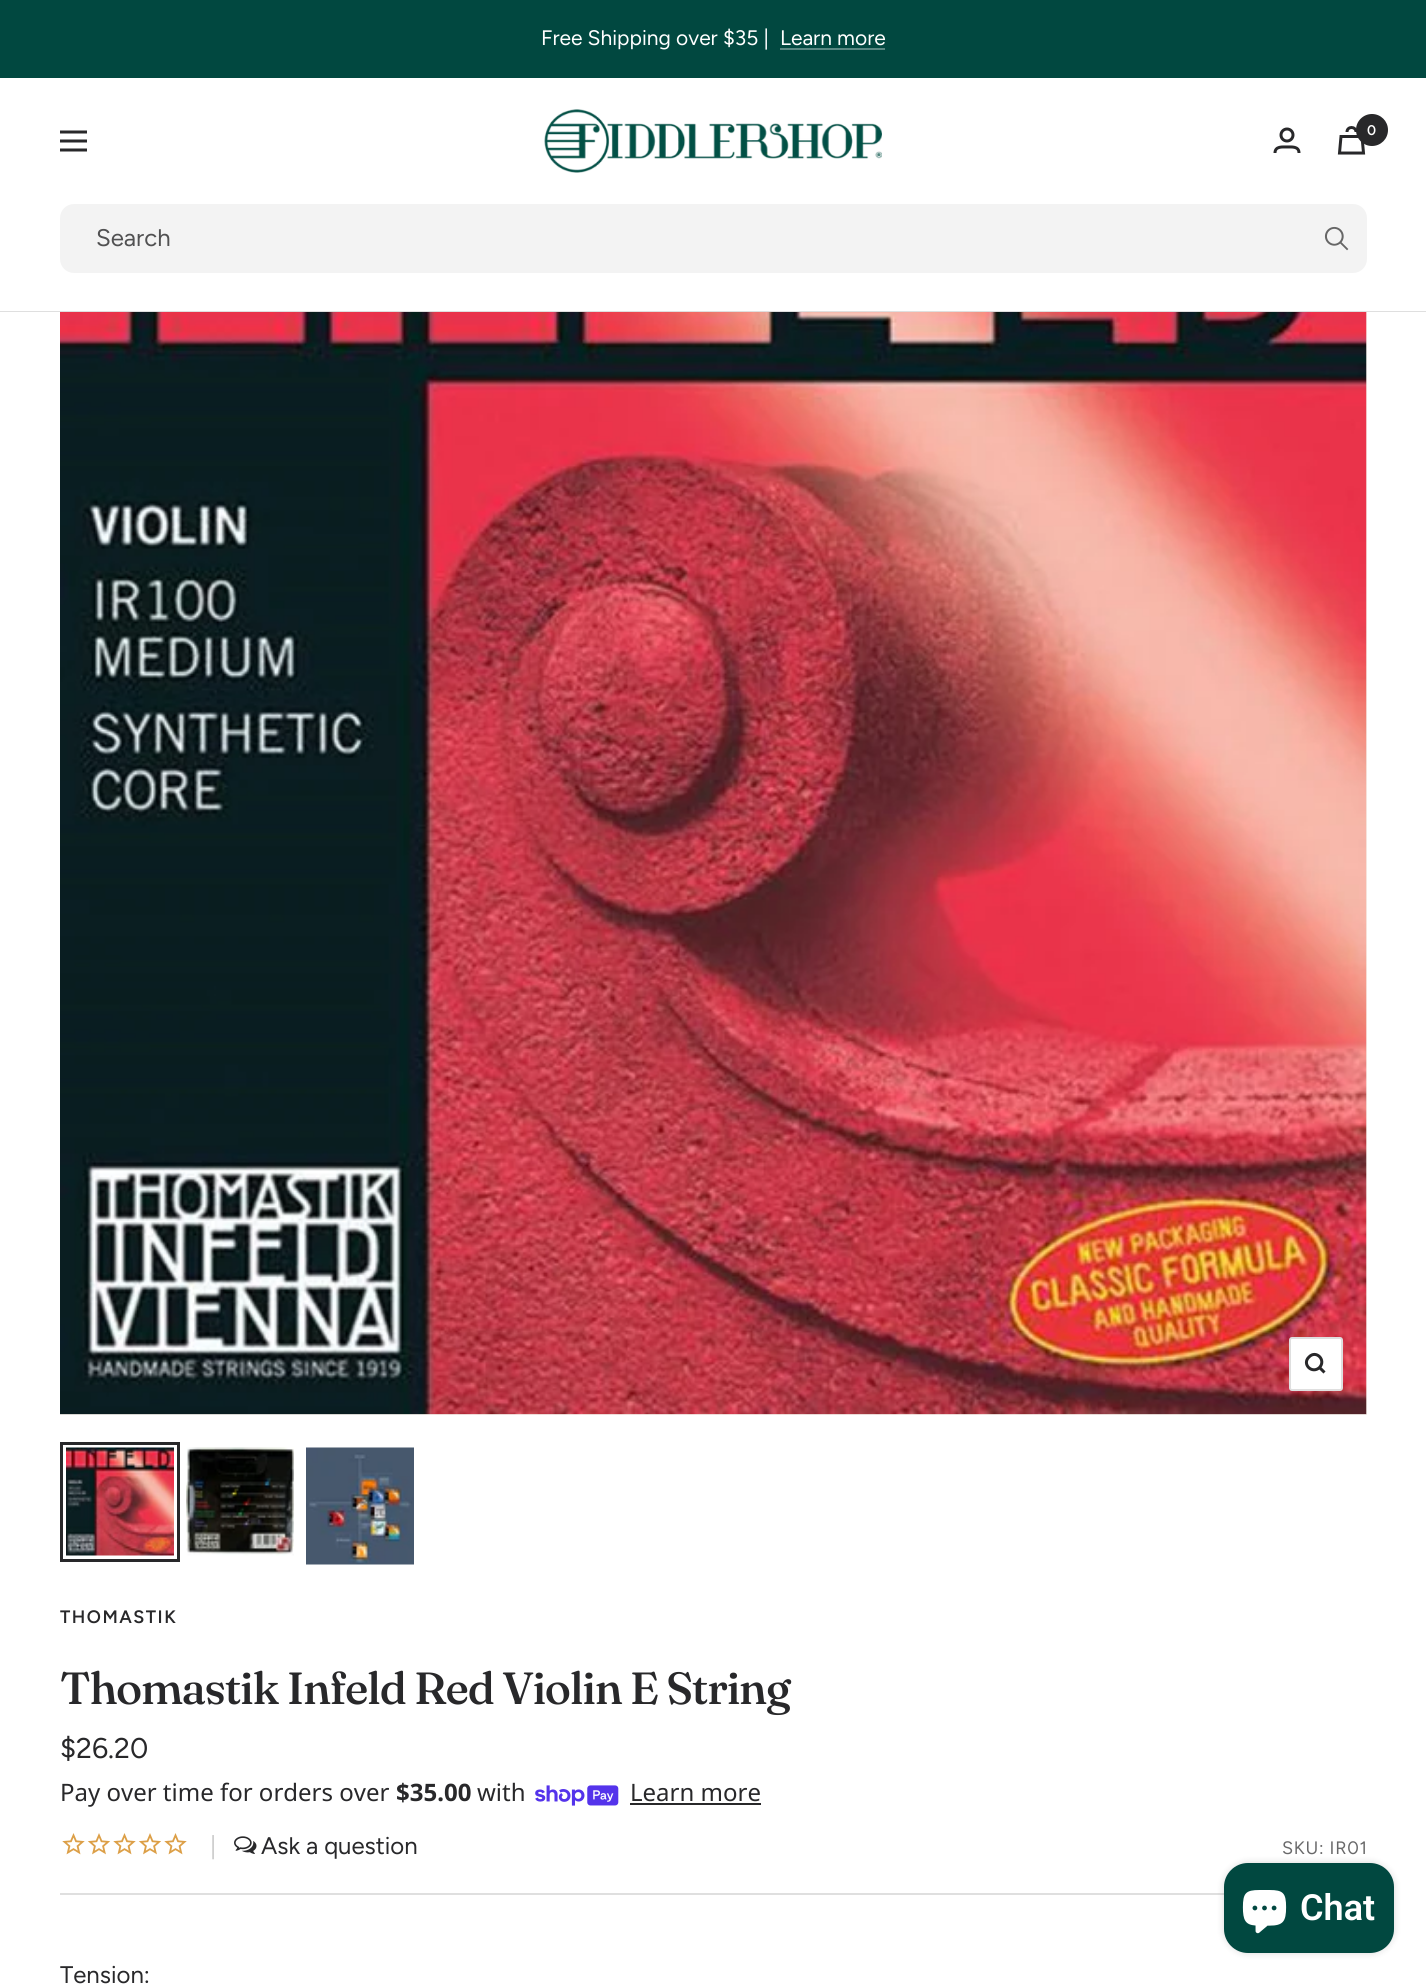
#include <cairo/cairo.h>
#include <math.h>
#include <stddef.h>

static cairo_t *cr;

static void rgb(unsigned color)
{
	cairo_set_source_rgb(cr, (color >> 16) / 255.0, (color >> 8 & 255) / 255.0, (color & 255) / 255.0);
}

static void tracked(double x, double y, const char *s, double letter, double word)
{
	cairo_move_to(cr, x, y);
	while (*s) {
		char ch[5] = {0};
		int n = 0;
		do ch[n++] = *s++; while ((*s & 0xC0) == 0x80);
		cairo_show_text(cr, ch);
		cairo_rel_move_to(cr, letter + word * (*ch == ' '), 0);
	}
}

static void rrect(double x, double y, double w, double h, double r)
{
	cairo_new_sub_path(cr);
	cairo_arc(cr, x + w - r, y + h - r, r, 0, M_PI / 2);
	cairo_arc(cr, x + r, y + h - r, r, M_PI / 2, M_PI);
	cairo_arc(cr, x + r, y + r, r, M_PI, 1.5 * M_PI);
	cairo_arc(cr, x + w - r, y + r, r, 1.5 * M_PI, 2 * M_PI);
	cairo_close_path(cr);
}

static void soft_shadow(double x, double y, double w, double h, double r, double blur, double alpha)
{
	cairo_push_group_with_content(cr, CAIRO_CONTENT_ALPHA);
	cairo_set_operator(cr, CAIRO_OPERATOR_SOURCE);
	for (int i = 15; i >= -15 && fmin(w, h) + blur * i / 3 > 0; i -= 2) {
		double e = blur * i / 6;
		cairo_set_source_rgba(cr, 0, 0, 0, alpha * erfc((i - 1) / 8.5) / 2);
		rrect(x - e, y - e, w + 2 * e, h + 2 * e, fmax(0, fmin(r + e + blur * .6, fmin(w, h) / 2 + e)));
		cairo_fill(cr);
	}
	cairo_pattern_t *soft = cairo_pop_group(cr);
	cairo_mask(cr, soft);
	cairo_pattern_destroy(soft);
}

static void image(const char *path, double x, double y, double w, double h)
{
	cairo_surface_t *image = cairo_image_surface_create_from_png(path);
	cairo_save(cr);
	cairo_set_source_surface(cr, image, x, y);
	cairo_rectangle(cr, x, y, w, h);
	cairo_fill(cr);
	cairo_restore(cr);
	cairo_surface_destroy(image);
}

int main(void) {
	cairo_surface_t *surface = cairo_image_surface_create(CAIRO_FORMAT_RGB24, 1426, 1984);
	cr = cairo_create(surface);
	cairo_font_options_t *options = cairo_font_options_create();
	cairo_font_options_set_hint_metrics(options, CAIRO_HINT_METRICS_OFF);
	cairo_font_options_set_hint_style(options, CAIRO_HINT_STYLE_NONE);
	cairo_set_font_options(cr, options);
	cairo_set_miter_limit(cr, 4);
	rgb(0xffffff);
	cairo_paint(cr);
	rgb(0x014840);
	cairo_rectangle(cr, 0, 0, 1426, 78);
	cairo_fill(cr);
	rgb(0x5a8883);
	cairo_rectangle(cr, 780, 48, 105, 2);
	cairo_fill(cr);
	rgb(0xdfdfdf);
	cairo_new_path(cr);
	cairo_move_to(cr, 0, 310);
	cairo_line_to(cr, 0, 312);
	cairo_line_to(cr, 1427, 312);
	cairo_line_to(cr, 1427, 80);
	cairo_line_to(cr, 1426, 80);
	cairo_line_to(cr, 1426, 310);
	cairo_close_path(cr);
	cairo_fill(cr);
	rgb(0xffffff);
	cairo_rectangle(cr, 0, 310, 1426, 1);
	cairo_fill(cr);
	cairo_new_path(cr);
	cairo_move_to(cr, 60, 132);
	cairo_line_to(cr, 87, 132);
	cairo_move_to(cr, 60, 150);
	cairo_line_to(cr, 87, 150);
	cairo_close_path(cr);
	cairo_move_to(cr, 60, 141);
	cairo_line_to(cr, 87, 141);
	cairo_close_path(cr);
	rgb(0x28282a);
	cairo_set_line_width(cr, 3);
	cairo_stroke(cr);
	image("img/1.png", 544, 109, 338, 64);
	cairo_arc(cr, 1287, 135, 6, 0, 2 * M_PI);
	cairo_stroke(cr);
	cairo_new_path(cr);
	cairo_move_to(cr, 1275, 153);
	cairo_curve_to(cr, 1275, 146, 1282.5, 147, 1287, 147);
	cairo_curve_to(cr, 1291.5, 147, 1299, 146, 1299, 153);
	cairo_stroke(cr);
	cairo_new_path(cr);
	cairo_move_to(cr, 1341, 136.5);
	cairo_line_to(cr, 1362, 136.5);
	cairo_line_to(cr, 1363.5, 153);
	cairo_line_to(cr, 1339.5, 153);
	cairo_close_path(cr);
	cairo_move_to(cr, 1356, 132);
	cairo_curve_to(cr, 1356, 126, 1347, 126, 1347, 132);
	cairo_stroke(cr);
	cairo_arc(cr, 1372, 130, 16, 0, 2 * M_PI);
	cairo_fill(cr);
	rgb(0xf3f3f3);
	rrect(60, 204, 1307, 69, 14);
	cairo_fill(cr);
	image("img/2.png", 1324, 226, 25, 25);
	rgb(0xf5f1ec);
	cairo_rectangle(cr, 60, 312, 1307, 1103);
	cairo_fill(cr);
	image("img/3.png", 60, 312, 1307, 1103);
	rgb(0xffffff);
	rrect(1290, 1338, 52, 52, 2);
	cairo_fill_preserve(cr);
	rgb(0xdfdfdf);
	cairo_set_line_width(cr, 2);
	cairo_stroke(cr);
	cairo_new_path(cr);
	cairo_move_to(cr, 1319.5, 1367.5);
	cairo_curve_to(cr, 1326.5, 1360, 1316, 1349.5, 1309, 1357);
	cairo_curve_to(cr, 1301.5, 1364, 1312, 1374.5, 1319.5, 1367.5);
	cairo_close_path(cr);
	cairo_move_to(cr, 1319.5, 1367.5);
	cairo_line_to(cr, 1324.5, 1372.5);
	rgb(0x28282a);
	cairo_set_line_width(cr, 3);
	cairo_stroke(cr);
	image("img/4.png", 66, 1447, 108, 109);
	cairo_rectangle(cr, 61.5, 1443.5, 117, 117);
	cairo_stroke(cr);
	image("img/5.png", 186, 1447, 108, 109);
	image("img/6.png", 306, 1447, 108, 118);
	rgb(0xdfdfdf);
	cairo_rectangle(cr, 60, 1893, 1164, 2);
	cairo_fill(cr);
	image("img/7.png", 535, 1785, 84, 21);
	rgb(0x28282a);
	cairo_rectangle(cr, 630, 1803, 131, 2);
	cairo_fill(cr);
	image("img/8.png", 62, 1833, 23, 22);
	image("img/9.png", 87, 1833, 24, 22);
	image("img/8.png", 113, 1833, 23, 22);
	image("img/9.png", 138, 1833, 24, 22);
	image("img/8.png", 164, 1833, 23, 22);
	image("img/10.png", 234, 1836, 23, 18);
	rgb(0x000000);
	soft_shadow(1224, 1863, 170, 90, 24, 4, 0.15);
	rgb(0x014840);
	rrect(1224, 1863, 170, 90, 24);
	cairo_fill(cr);
	image("img/11.png", 1242, 1890, 45, 44);
	cairo_select_font_face(cr, "Figtree", CAIRO_FONT_SLANT_NORMAL, CAIRO_FONT_WEIGHT_NORMAL);
	cairo_set_font_size(cr, 21);
	rgb(0xffffff);
	cairo_move_to(cr, 541, 45);
	cairo_show_text(cr, "Free Shipping over $35 |");
	cairo_move_to(cr, 780, 45);
	cairo_show_text(cr, "Learn more");
	cairo_select_font_face(cr, "Figtree SemiBold", CAIRO_FONT_SLANT_NORMAL, CAIRO_FONT_WEIGHT_NORMAL);
	cairo_set_font_size(cr, 14);
	cairo_move_to(cr, 1367, 135);
	cairo_show_text(cr, "0");
	cairo_select_font_face(cr, "Figtree", CAIRO_FONT_SLANT_NORMAL, CAIRO_FONT_WEIGHT_NORMAL);
	cairo_set_font_size(cr, 24);
	rgb(0x515152);
	cairo_move_to(cr, 96, 246);
	cairo_show_text(cr, "Search");
	cairo_select_font_face(cr, "Figtree SemiBold", CAIRO_FONT_SLANT_NORMAL, CAIRO_FONT_WEIGHT_NORMAL);
	cairo_set_font_size(cr, 18);
	rgb(0x28282a);
	tracked(60, 1623, "THOMASTIK", 1.5, 0);
	cairo_select_font_face(cr, "Fraunces Medium", CAIRO_FONT_SLANT_NORMAL, CAIRO_FONT_WEIGHT_NORMAL);
	cairo_set_font_size(cr, 45);
	tracked(60, 1704, "Thomastik Infeld Red Violin E String", -1.2, 0);
	cairo_select_font_face(cr, "Figtree", CAIRO_FONT_SLANT_NORMAL, CAIRO_FONT_WEIGHT_NORMAL);
	cairo_set_font_size(cr, 28.5);
	cairo_move_to(cr, 60, 1758);
	cairo_show_text(cr, "$26.20");
	cairo_select_font_face(cr, "Noto Sans", CAIRO_FONT_SLANT_NORMAL, CAIRO_FONT_WEIGHT_NORMAL);
	cairo_set_font_size(cr, 24);
	cairo_move_to(cr, 60, 1801);
	cairo_show_text(cr, "Pay over time for orders over");
	cairo_select_font_face(cr, "Noto Sans", CAIRO_FONT_SLANT_NORMAL, CAIRO_FONT_WEIGHT_BOLD);
	cairo_move_to(cr, 396, 1801);
	cairo_show_text(cr, "$35.00");
	cairo_select_font_face(cr, "Noto Sans", CAIRO_FONT_SLANT_NORMAL, CAIRO_FONT_WEIGHT_NORMAL);
	cairo_move_to(cr, 477, 1801);
	cairo_show_text(cr, "with");
	cairo_move_to(cr, 630, 1801);
	cairo_show_text(cr, "Learn more");
	cairo_select_font_face(cr, "Figtree", CAIRO_FONT_SLANT_NORMAL, CAIRO_FONT_WEIGHT_NORMAL);
	rgb(0xcccccc);
	cairo_move_to(cr, 210, 1854);
	cairo_show_text(cr, "|");
	rgb(0x28282a);
	cairo_move_to(cr, 261, 1854);
	cairo_show_text(cr, "Ask a question");
	cairo_set_font_size(cr, 18);
	rgb(0x69696a);
	tracked(1282, 1854, "SKU: IR01", 0.75, 0);
	cairo_set_font_size(cr, 24);
	rgb(0x28282a);
	cairo_move_to(cr, 60, 1983);
	cairo_show_text(cr, "Tension:");
	cairo_select_font_face(cr, "Roboto SemiBold", CAIRO_FONT_SLANT_NORMAL, CAIRO_FONT_WEIGHT_NORMAL);
	cairo_set_font_size(cr, 36);
	rgb(0xffffff);
	cairo_move_to(cr, 1300, 1920);
	cairo_show_text(cr, "Chat");
	cairo_surface_write_to_png(surface, "page.png");
	cairo_font_options_destroy(options);
	cairo_destroy(cr);
	cairo_surface_destroy(surface);
	return 0;
}
